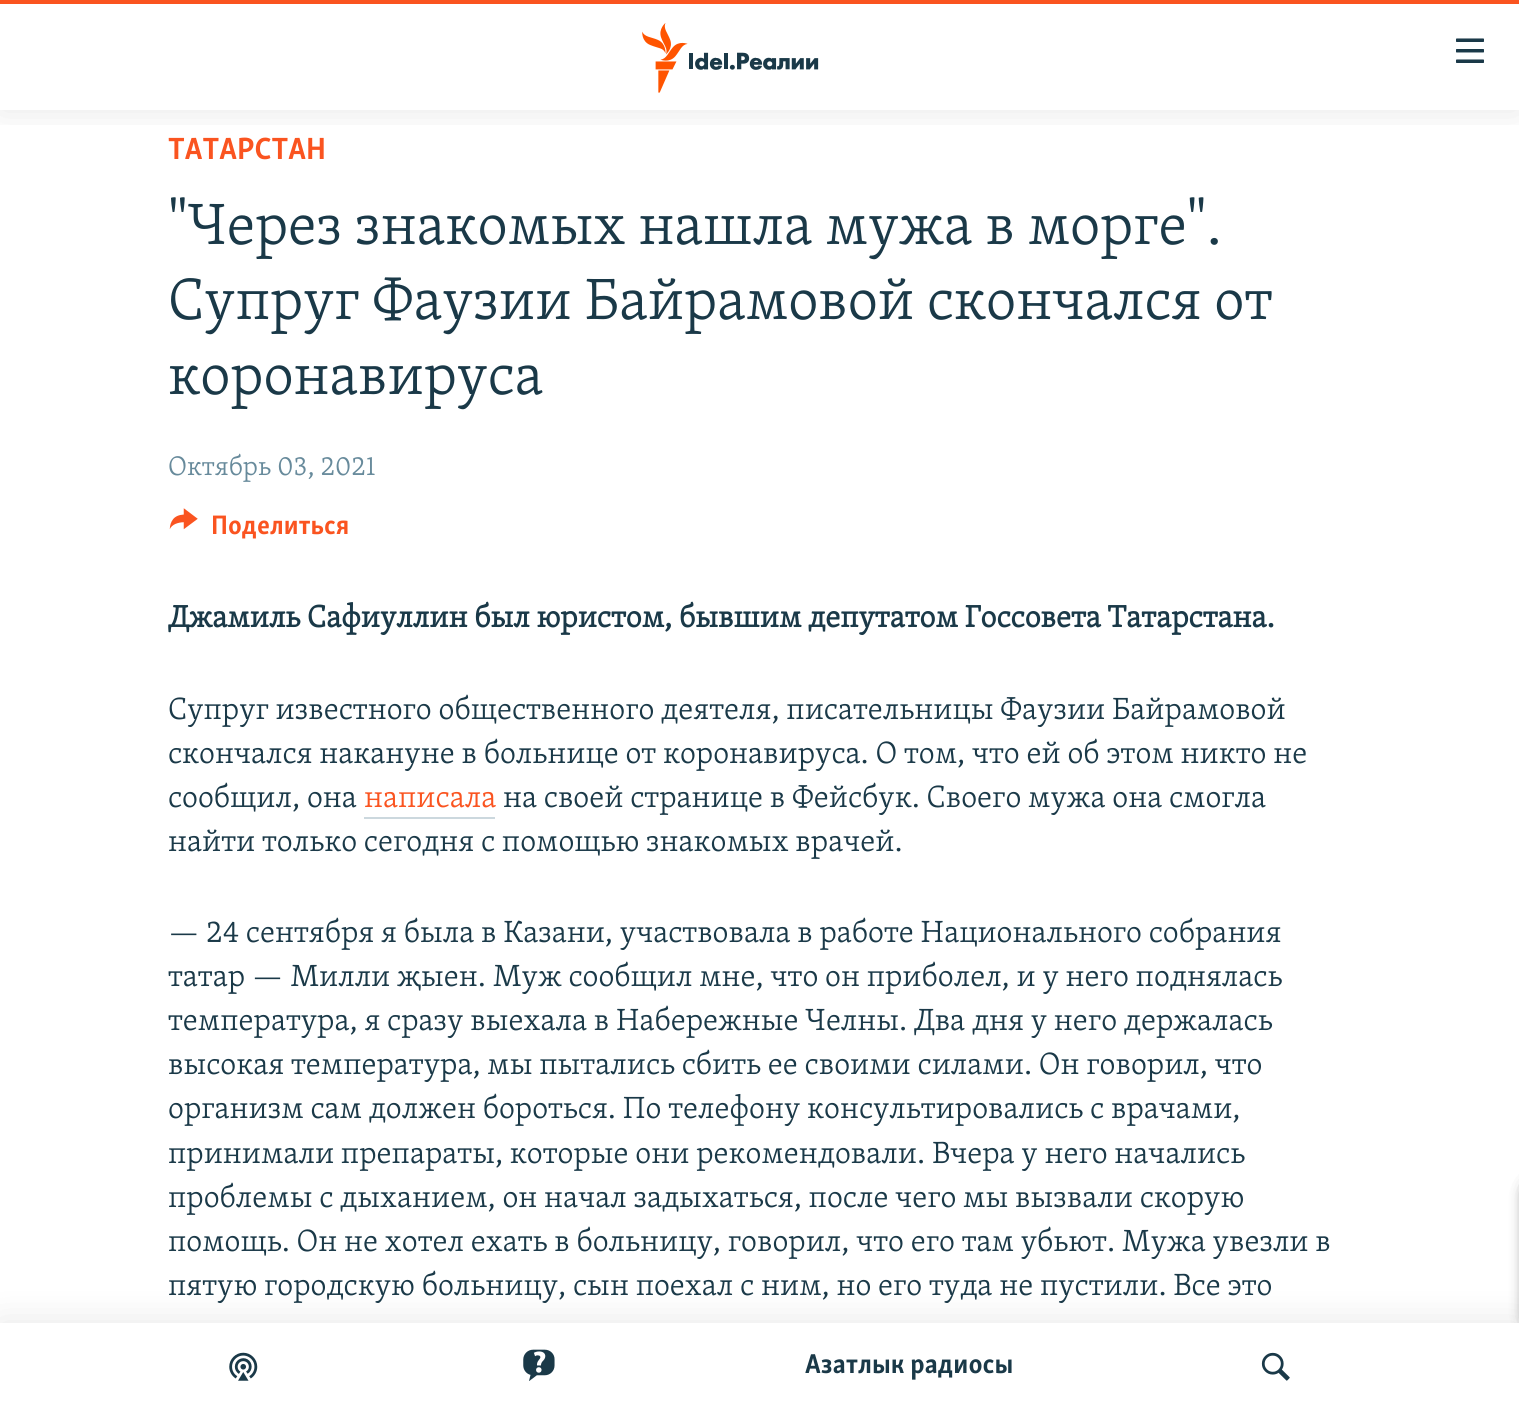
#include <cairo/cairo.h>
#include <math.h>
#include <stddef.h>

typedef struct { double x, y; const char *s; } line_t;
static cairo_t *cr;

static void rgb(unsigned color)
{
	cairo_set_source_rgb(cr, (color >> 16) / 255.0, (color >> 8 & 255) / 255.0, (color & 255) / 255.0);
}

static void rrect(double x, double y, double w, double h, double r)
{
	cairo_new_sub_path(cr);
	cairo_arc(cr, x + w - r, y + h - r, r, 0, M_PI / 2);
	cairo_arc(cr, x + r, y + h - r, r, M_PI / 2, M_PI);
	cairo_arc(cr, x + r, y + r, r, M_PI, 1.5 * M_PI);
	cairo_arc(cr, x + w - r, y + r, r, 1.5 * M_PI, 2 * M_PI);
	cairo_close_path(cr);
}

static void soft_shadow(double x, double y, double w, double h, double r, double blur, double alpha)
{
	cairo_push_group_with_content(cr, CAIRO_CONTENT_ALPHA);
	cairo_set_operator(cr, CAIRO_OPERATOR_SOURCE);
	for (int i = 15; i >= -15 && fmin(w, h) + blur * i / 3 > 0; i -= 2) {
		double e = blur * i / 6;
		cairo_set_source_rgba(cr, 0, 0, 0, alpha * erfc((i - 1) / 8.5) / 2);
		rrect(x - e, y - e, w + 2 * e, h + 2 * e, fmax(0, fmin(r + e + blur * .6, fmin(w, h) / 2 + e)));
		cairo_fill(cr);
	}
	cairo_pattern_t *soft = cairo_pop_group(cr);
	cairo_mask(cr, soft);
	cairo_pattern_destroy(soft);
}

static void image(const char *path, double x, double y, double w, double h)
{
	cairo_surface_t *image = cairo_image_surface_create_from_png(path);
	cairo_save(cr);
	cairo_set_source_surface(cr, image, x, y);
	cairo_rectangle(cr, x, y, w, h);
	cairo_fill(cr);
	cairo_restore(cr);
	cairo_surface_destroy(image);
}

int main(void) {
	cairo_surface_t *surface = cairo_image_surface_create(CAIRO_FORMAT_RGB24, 1519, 1409);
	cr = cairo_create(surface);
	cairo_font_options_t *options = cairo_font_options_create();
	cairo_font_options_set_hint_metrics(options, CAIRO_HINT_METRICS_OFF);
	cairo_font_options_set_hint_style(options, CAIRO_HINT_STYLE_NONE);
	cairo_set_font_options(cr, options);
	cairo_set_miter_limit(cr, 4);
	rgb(0xffffff);
	cairo_paint(cr);
	image("img/1.png", 169, 508, 29, 22);
	rgb(0xccd8de);
	cairo_rectangle(cr, 364, 817, 131, 2);
	cairo_fill(cr);
	rgb(0x000000);
	soft_shadow(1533, 1187, 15, 136, 2, 9, 0.85);
	soft_shadow(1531, 1187, 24, 136, 9, 9, 0.85);
	cairo_save(cr);
	cairo_rectangle(cr, 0, 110, 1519, 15);
	cairo_clip(cr);
	soft_shadow(0, 0, 1519, 110, 0, 17.5, 0.1);
	cairo_restore(cr);
	rgb(0xfa5420);
	cairo_rectangle(cr, 0, 0, 1519, 4);
	cairo_fill(cr);
	image("img/2.png", 642, 23, 177, 70);
	image("img/3.png", 1456, 38, 28, 25);
	rgb(0x000000);
	soft_shadow(0, 1323, 1519, 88, 0, 17.5, 0.1);
	rgb(0xffffff);
	cairo_rectangle(cr, 0, 1323, 1519, 86);
	cairo_fill(cr);
	image("img/4.png", 229, 1352, 29, 29);
	image("img/5.png", 523, 1349, 32, 32);
	image("img/6.png", 1261, 1352, 29, 29);
	cairo_select_font_face(cr, "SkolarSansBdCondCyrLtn", CAIRO_FONT_SLANT_NORMAL, CAIRO_FONT_WEIGHT_BOLD);
	cairo_set_font_size(cr, 31.5);
	rgb(0xfa5420);
	cairo_move_to(cr, 168, 159);
	cairo_show_text(cr, "ТАТАРСТАН");
	cairo_select_font_face(cr, "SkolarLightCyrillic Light", CAIRO_FONT_SLANT_NORMAL, CAIRO_FONT_WEIGHT_NORMAL);
	cairo_set_font_size(cr, 59.8);
	rgb(0x1a3948);
	{
		static const line_t items[] = {
			{168, 244, "\"Через знакомых нашла мужа в морге\"."},
			{168, 319, "Супруг Фаузии Байрамовой скончался от"},
			{168, 394, "коронавируса"},
		};
		for (size_t i = 0; i < sizeof items / sizeof *items; i++) {
			cairo_move_to(cr, items[i].x, items[i].y);
			cairo_show_text(cr, items[i].s);
		}
	}
	cairo_set_font_size(cr, 27.5);
	rgb(0x678a9b);
	cairo_move_to(cr, 168, 475);
	cairo_show_text(cr, "Октябрь 03, 2021");
	cairo_select_font_face(cr, "SkolarSansBdCondCyrLtn", CAIRO_FONT_SLANT_NORMAL, CAIRO_FONT_WEIGHT_BOLD);
	rgb(0xfa5420);
	cairo_move_to(cr, 211, 534);
	cairo_show_text(cr, "Поделиться");
	cairo_select_font_face(cr, "SkolarLightCyrillic", CAIRO_FONT_SLANT_NORMAL, CAIRO_FONT_WEIGHT_BOLD);
	cairo_set_font_size(cr, 31.5);
	rgb(0x1a3948);
	cairo_move_to(cr, 168, 627);
	cairo_show_text(cr, "Джамиль Сафиуллин был юристом, бывшим депутатом Госсовета Татарстана.");
	cairo_select_font_face(cr, "SkolarLightCyrillic Light", CAIRO_FONT_SLANT_NORMAL, CAIRO_FONT_WEIGHT_NORMAL);
	{
		static const line_t items[] = {
			{168, 719, "Супруг известного общественного деятеля, писательницы Фаузии Байрамовой"},
			{168, 763, "скончался накануне в больнице от коронавируса. О том, что ей об этом никто не"},
			{168, 807, "сообщил, она"},
		};
		for (size_t i = 0; i < sizeof items / sizeof *items; i++) {
			cairo_move_to(cr, items[i].x, items[i].y);
			cairo_show_text(cr, items[i].s);
		}
	}
	rgb(0xfa5420);
	cairo_move_to(cr, 364, 807);
	cairo_show_text(cr, "написала");
	rgb(0x1a3948);
	{
		static const line_t items[] = {
			{503, 807, "на своей странице в Фейсбук. Своего мужа она смогла"},
			{168, 851, "найти только сегодня с помощью знакомых врачей."},
			{168, 942, "— 24 сентября я была в Казани, участвовала в работе Национального собрания"},
			{168, 986, "татар — Милли җыен. Муж сообщил мне, что он приболел, и у него поднялась"},
			{168, 1030, "температура, я сразу выехала в Набережные Челны. Два дня у него держалась"},
			{168, 1074, "высокая температура, мы пытались сбить ее своими силами. Он говорил, что"},
			{168, 1118, "организм сам должен бороться. По телефону консультировались с врачами,"},
			{168, 1163, "принимали препараты, которые они рекомендовали. Вчера у него начались"},
			{168, 1207, "проблемы с дыханием, он начал задыхаться, после чего мы вызвали скорую"},
			{168, 1251, "помощь. Он не хотел ехать в больницу, говорил, что его там убьют. Мужа увезли в"},
			{168, 1295, "пятую городскую больницу, сын поехал с ним, но его туда не пустили. Все это"},
		};
		for (size_t i = 0; i < sizeof items / sizeof *items; i++) {
			cairo_move_to(cr, items[i].x, items[i].y);
			cairo_show_text(cr, items[i].s);
		}
	}
	cairo_select_font_face(cr, "SkolarSansBdCondCyrLtn", CAIRO_FONT_SLANT_NORMAL, CAIRO_FONT_WEIGHT_BOLD);
	cairo_set_font_size(cr, 28);
	cairo_move_to(cr, 805, 1373);
	cairo_show_text(cr, "Aзатлык радиосы");
	cairo_surface_write_to_png(surface, "page.png");
	cairo_font_options_destroy(options);
	cairo_destroy(cr);
	cairo_surface_destroy(surface);
	return 0;
}
